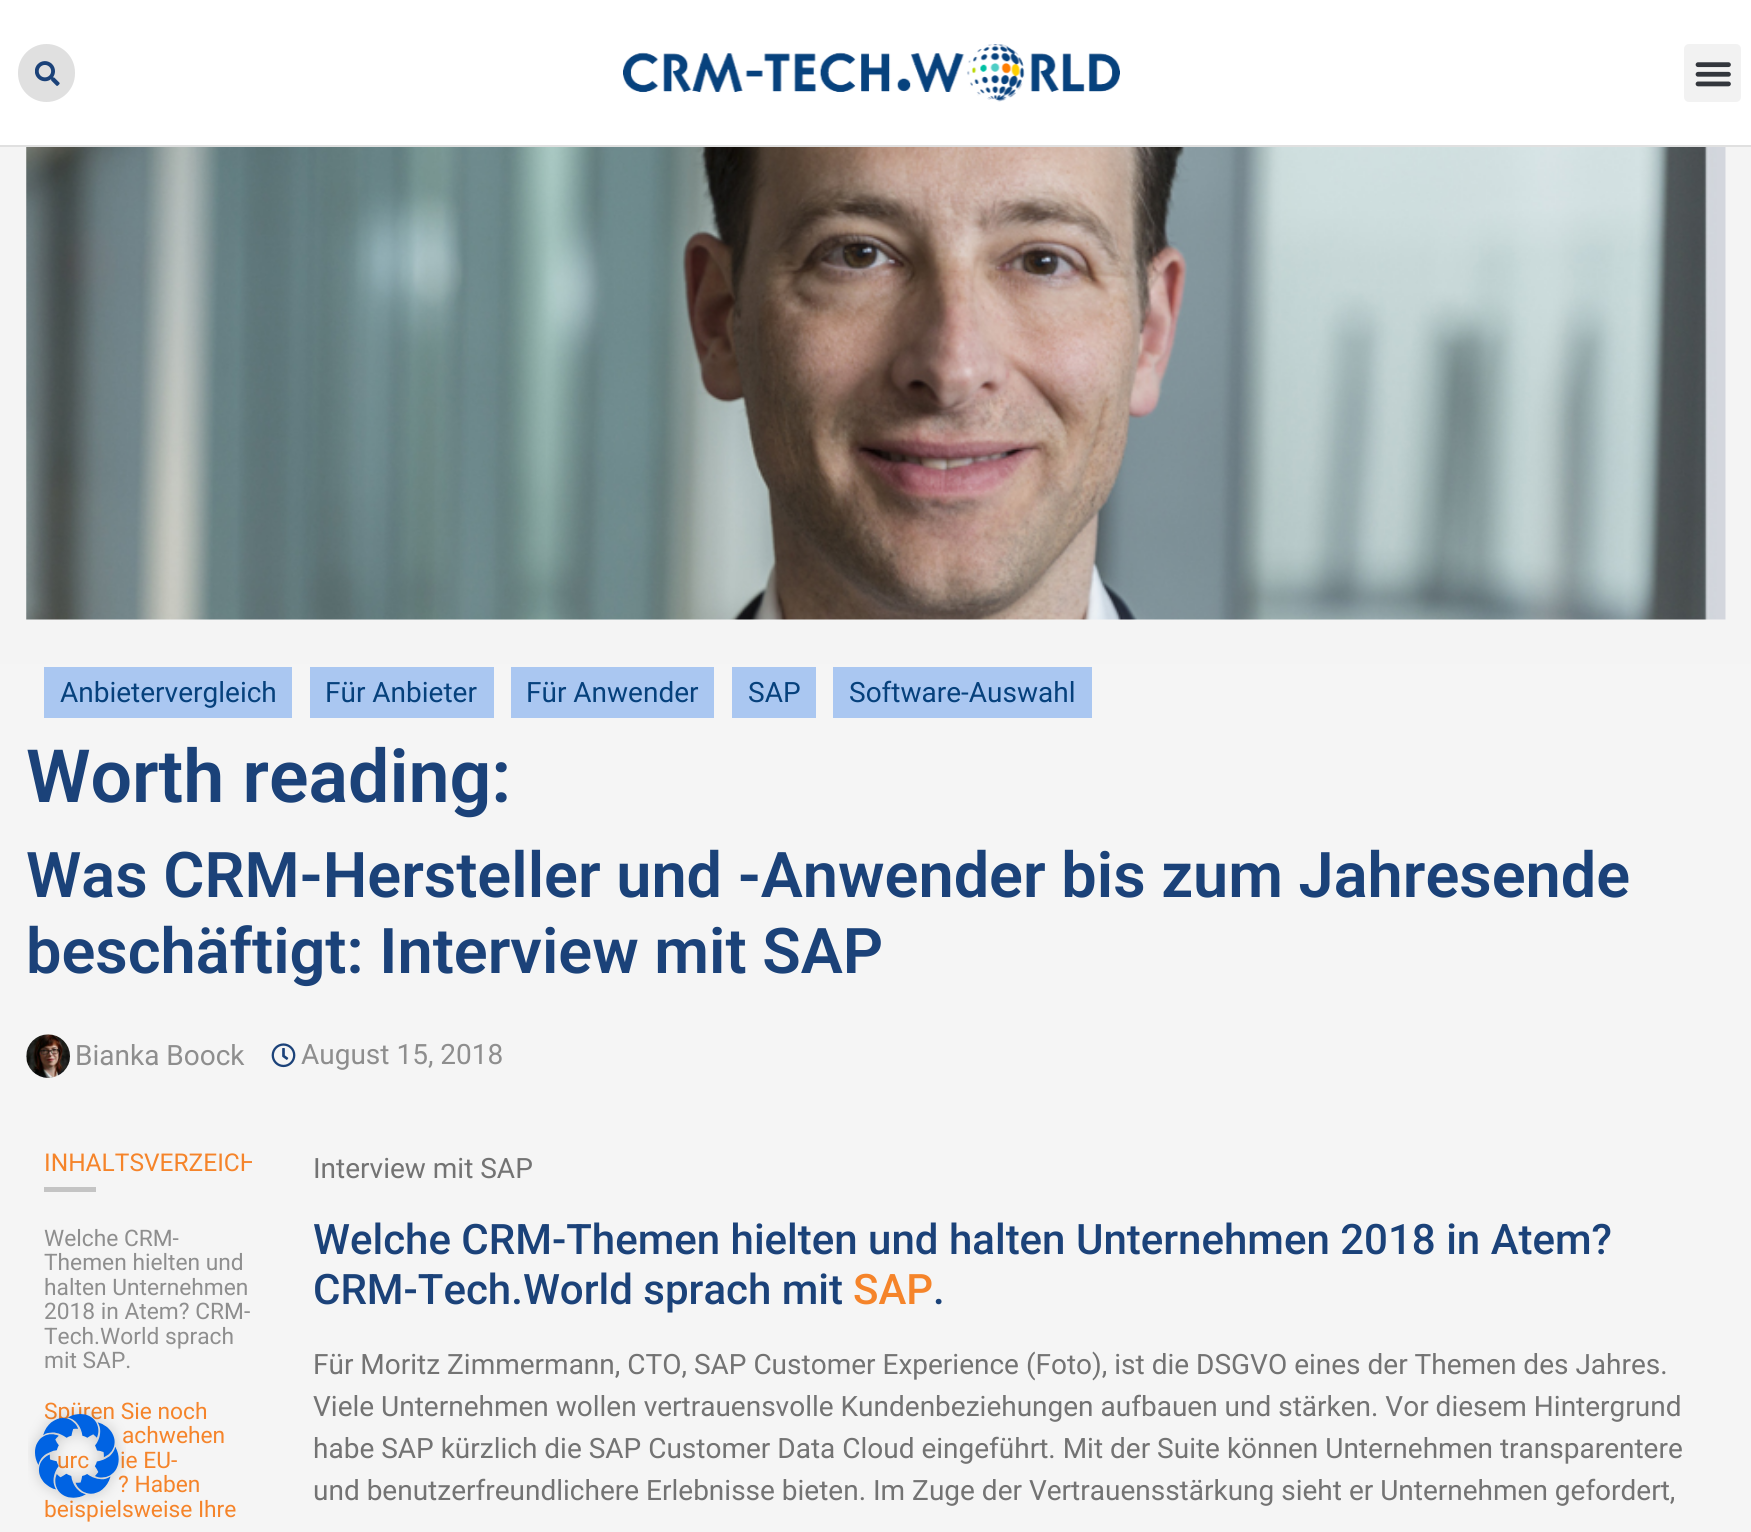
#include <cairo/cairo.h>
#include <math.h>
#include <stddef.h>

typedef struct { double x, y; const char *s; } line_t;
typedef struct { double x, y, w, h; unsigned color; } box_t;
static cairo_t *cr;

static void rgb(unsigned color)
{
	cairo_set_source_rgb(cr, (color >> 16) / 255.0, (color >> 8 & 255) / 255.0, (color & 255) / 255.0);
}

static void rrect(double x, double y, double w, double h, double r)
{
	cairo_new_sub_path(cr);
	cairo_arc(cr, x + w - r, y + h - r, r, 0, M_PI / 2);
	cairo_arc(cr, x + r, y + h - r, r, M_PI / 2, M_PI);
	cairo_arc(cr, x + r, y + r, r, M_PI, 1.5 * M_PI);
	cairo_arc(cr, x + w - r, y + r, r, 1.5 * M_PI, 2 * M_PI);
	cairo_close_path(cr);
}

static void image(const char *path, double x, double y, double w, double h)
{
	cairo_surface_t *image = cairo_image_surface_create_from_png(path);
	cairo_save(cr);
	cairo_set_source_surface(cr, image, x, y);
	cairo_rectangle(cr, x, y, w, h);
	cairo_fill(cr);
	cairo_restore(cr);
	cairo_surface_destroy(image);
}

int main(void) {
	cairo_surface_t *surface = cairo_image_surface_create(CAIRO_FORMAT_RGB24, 1751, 1532);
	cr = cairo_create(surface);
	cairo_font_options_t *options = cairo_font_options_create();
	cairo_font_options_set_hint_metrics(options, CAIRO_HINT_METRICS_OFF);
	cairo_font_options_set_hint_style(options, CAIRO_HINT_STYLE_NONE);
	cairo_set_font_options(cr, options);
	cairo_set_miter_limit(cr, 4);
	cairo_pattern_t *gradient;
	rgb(0xffffff);
	cairo_paint(cr);
	rgb(0xe0e0e0);
	cairo_rectangle(cr, 0, 145, 1751, 2);
	cairo_fill(cr);
	rrect(18, 44, 57, 58, 28.5);
	cairo_fill(cr);
	image("img/1.png", 35, 61, 25, 25);
	image("img/2.png", 623, 44, 497, 58);
	rgb(0xf2f2f2);
	rrect(1684, 44, 57, 58, 5);
	cairo_fill(cr);
	image("img/3.png", 1695, 62, 36, 25);
	gradient = cairo_pattern_create_linear(876, 147, 876, 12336);
	cairo_pattern_add_color_stop_rgba(gradient, 0, 0.957, 0.957, 0.957, 1);
	cairo_pattern_add_color_stop_rgba(gradient, 1, 1, 1, 1, 1);
	cairo_set_source(cr, gradient);
	cairo_pattern_destroy(gradient);
	cairo_rectangle(cr, 0, 147, 1751, 1385);
	cairo_fill(cr);
	image("img/4.png", 26, 147, 1700, 473);
	{
		static const box_t items[] = {
			{44, 667, 248, 51, 0xaac7f1},
			{310, 667, 184, 51, 0xaac7f1},
			{511, 667, 203, 51, 0xaac7f1},
			{732, 667, 84, 51, 0xaac7f1},
			{833, 667, 259, 51, 0xaac7f1},
		};
		for (size_t i = 0; i < sizeof items / sizeof *items; i++) {
			rgb(items[i].color);
			cairo_rectangle(cr, items[i].x, items[i].y, items[i].w, items[i].h);
			cairo_fill(cr);
		}
	}
	image("img/5.png", 26, 1034, 44, 44);
	image("img/6.png", 271, 1043, 25, 25);
	rgb(0xc4c4c4);
	cairo_rectangle(cr, 44, 1187, 52, 5);
	cairo_fill(cr);
	cairo_select_font_face(cr, "Roboto", CAIRO_FONT_SLANT_NORMAL, CAIRO_FONT_WEIGHT_NORMAL);
	cairo_set_font_size(cr, 28);
	rgb(0x06417c);
	{
		static const line_t items[] = {
			{60, 702, "Anbietervergleich"},
			{325, 702, "Für Anbieter"},
			{526, 702, "Für Anwender"},
			{748, 702, "SAP"},
			{849, 702, "Software-Auswahl"},
		};
		for (size_t i = 0; i < sizeof items / sizeof *items; i++) {
			cairo_move_to(cr, items[i].x, items[i].y);
			cairo_show_text(cr, items[i].s);
		}
	}
	cairo_select_font_face(cr, "Roboto SemiBold", CAIRO_FONT_SLANT_NORMAL, CAIRO_FONT_WEIGHT_NORMAL);
	cairo_set_font_size(cr, 73.5);
	rgb(0x1b4279);
	cairo_move_to(cr, 26, 802);
	cairo_show_text(cr, "Worth reading:");
	cairo_set_font_size(cr, 63);
	cairo_move_to(cr, 26, 897);
	cairo_show_text(cr, "Was CRM-Hersteller und -Anwender bis zum Jahresende");
	cairo_move_to(cr, 26, 973);
	cairo_show_text(cr, "beschäftigt: Interview mit SAP");
	cairo_select_font_face(cr, "Roboto", CAIRO_FONT_SLANT_NORMAL, CAIRO_FONT_WEIGHT_NORMAL);
	cairo_set_font_size(cr, 28);
	rgb(0x8e8e8e);
	cairo_move_to(cr, 75, 1065);
	cairo_show_text(cr, "Bianka Boock");
	cairo_move_to(cr, 301, 1064);
	cairo_show_text(cr, "August 15, 2018");
	cairo_save(cr);
	rrect(44, 1148, 208, 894, 5);
	cairo_clip(cr);
	cairo_set_font_size(cr, 24.5);
	rgb(0xf5842a);
	cairo_move_to(cr, 44, 1171);
	cairo_show_text(cr, "INHALTSVERZEICH");
	cairo_restore(cr);
	cairo_set_font_size(cr, 22.75);
	{
		static const line_t items[] = {
			{44, 1246, "Welche CRM-"},
			{44, 1270, "Themen hielten und"},
			{44, 1295, "halten Unternehmen"},
			{44, 1319, "2018 in Atem? CRM-"},
			{44, 1344, "Tech.World sprach"},
			{44, 1368, "mit SAP."},
		};
		for (size_t i = 0; i < sizeof items / sizeof *items; i++) {
			cairo_move_to(cr, items[i].x, items[i].y);
			cairo_show_text(cr, items[i].s);
		}
	}
	rgb(0xf5842a);
	{
		static const line_t items[] = {
			{44, 1419, "Spüren Sie noch"},
			{122, 1443, "achwehen"},
			{57, 1468, "urc"},
			{120, 1468, "ie EU-"},
			{118, 1492, "? Haben"},
			{44, 1517, "beispielsweise Ihre"},
		};
		for (size_t i = 0; i < sizeof items / sizeof *items; i++) {
			cairo_move_to(cr, items[i].x, items[i].y);
			cairo_show_text(cr, items[i].s);
		}
	}
	cairo_set_font_size(cr, 28);
	rgb(0x737373);
	cairo_move_to(cr, 313, 1178);
	cairo_show_text(cr, "Interview mit SAP");
	cairo_select_font_face(cr, "Roboto Medium", CAIRO_FONT_SLANT_NORMAL, CAIRO_FONT_WEIGHT_NORMAL);
	cairo_set_font_size(cr, 42);
	rgb(0x1b4279);
	cairo_move_to(cr, 313, 1254);
	cairo_show_text(cr, "Welche CRM-Themen hielten und halten Unternehmen 2018 in Atem?");
	cairo_move_to(cr, 313, 1304);
	cairo_show_text(cr, "CRM-Tech.World sprach mit");
	rgb(0xf5842a);
	cairo_move_to(cr, 853, 1304);
	cairo_show_text(cr, "SAP");
	rgb(0x1b4279);
	cairo_move_to(cr, 933, 1304);
	cairo_show_text(cr, ".");
	cairo_select_font_face(cr, "Roboto", CAIRO_FONT_SLANT_NORMAL, CAIRO_FONT_WEIGHT_NORMAL);
	cairo_set_font_size(cr, 28);
	rgb(0x737373);
	{
		static const line_t items[] = {
			{313, 1374, "Für Moritz Zimmermann, CTO, SAP Customer Experience (Foto), ist die DSGVO eines der Themen des Jahres."},
			{313, 1416, "Viele Unternehmen wollen vertrauensvolle Kundenbeziehungen aufbauen und stärken. Vor diesem Hintergrund"},
			{313, 1458, "habe SAP kürzlich die SAP Customer Data Cloud eingeführt. Mit der Suite können Unternehmen transparentere"},
			{313, 1500, "und benutzerfreundlichere Erlebnisse bieten. Im Zuge der Vertrauensstärkung sieht er Unternehmen gefordert,"},
		};
		for (size_t i = 0; i < sizeof items / sizeof *items; i++) {
			cairo_move_to(cr, items[i].x, items[i].y);
			cairo_show_text(cr, items[i].s);
		}
	}
	image("img/7.png", 28, 1407, 98, 98);
	cairo_surface_write_to_png(surface, "page.png");
	cairo_font_options_destroy(options);
	cairo_destroy(cr);
	cairo_surface_destroy(surface);
	return 0;
}
